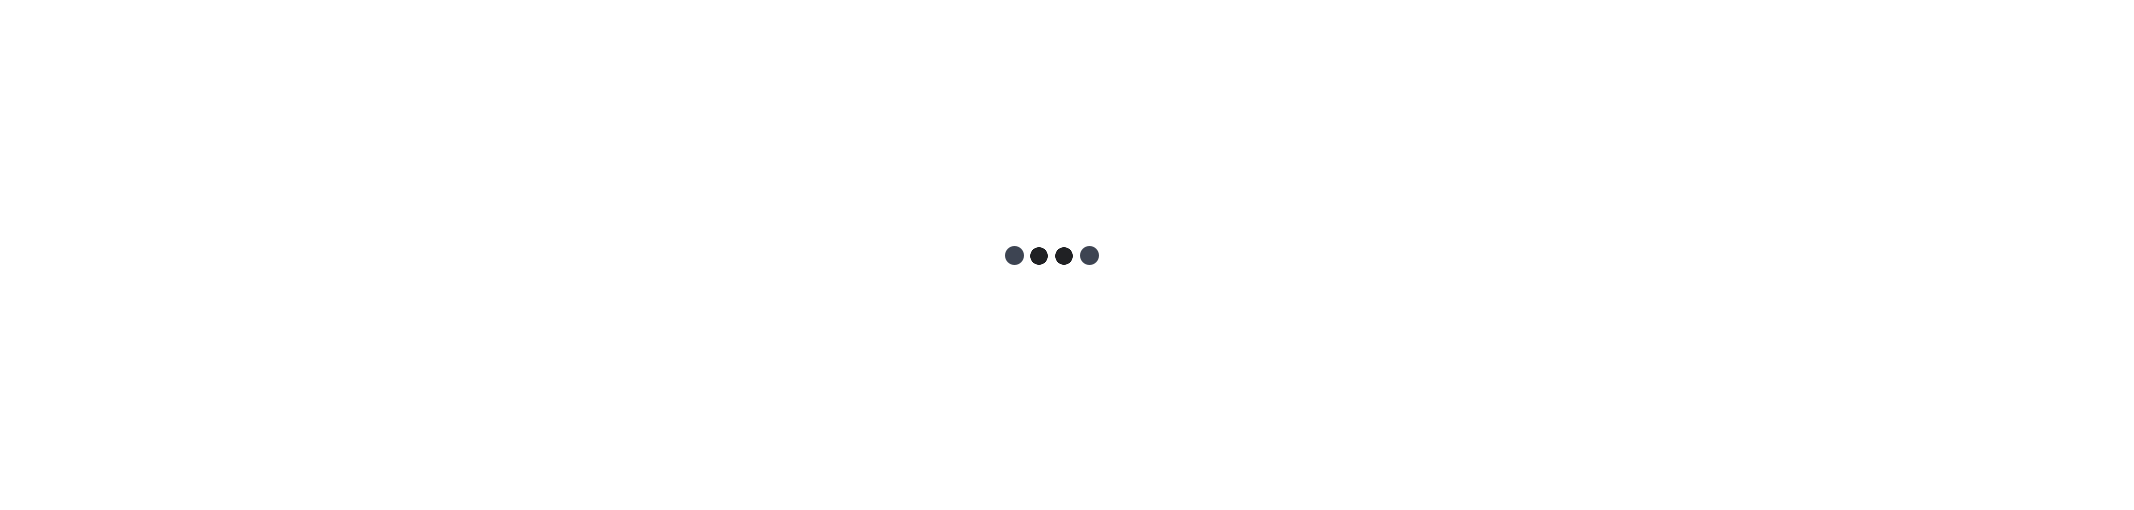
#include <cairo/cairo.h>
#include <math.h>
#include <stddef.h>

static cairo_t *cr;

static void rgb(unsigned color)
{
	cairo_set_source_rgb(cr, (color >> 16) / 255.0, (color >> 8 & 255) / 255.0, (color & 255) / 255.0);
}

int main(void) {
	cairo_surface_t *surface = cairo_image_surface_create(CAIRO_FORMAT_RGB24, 2134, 510);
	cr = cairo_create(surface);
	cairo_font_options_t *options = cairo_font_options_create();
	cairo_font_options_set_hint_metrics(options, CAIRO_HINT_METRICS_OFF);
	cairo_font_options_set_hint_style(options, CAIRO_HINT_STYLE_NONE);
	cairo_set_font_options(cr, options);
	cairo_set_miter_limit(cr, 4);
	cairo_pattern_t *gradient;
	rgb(0xffffff);
	cairo_paint(cr);
	gradient = cairo_pattern_create_radial(1064, 256, 0, 1064, 256, 9);
	cairo_pattern_add_color_stop_rgba(gradient, 0.95, 0.125, 0.129, 0.141, 1);
	cairo_pattern_add_color_stop_rgba(gradient, 1, 1, 1, 1, 1);
	cairo_set_source(cr, gradient);
	cairo_pattern_destroy(gradient);
	cairo_rectangle(cr, 1055, 247, 18, 18);
	cairo_fill(cr);
	gradient = cairo_pattern_create_radial(1039, 256, 0, 1039, 256, 9);
	cairo_pattern_add_color_stop_rgba(gradient, 0.95, 0.125, 0.129, 0.141, 1);
	cairo_pattern_add_color_stop_rgba(gradient, 1, 1, 1, 1, 1);
	cairo_set_source(cr, gradient);
	cairo_pattern_destroy(gradient);
	cairo_rectangle(cr, 1030, 247, 18, 18);
	cairo_fill(cr);
	rgb(0x3d4452);
	cairo_arc(cr, 1014.5, 255.5, 9.5, 0, 2 * M_PI);
	cairo_fill(cr);
	cairo_arc(cr, 1089.5, 255.5, 9.5, 0, 2 * M_PI);
	cairo_fill(cr);
	cairo_surface_write_to_png(surface, "page.png");
	cairo_font_options_destroy(options);
	cairo_destroy(cr);
	cairo_surface_destroy(surface);
	return 0;
}
